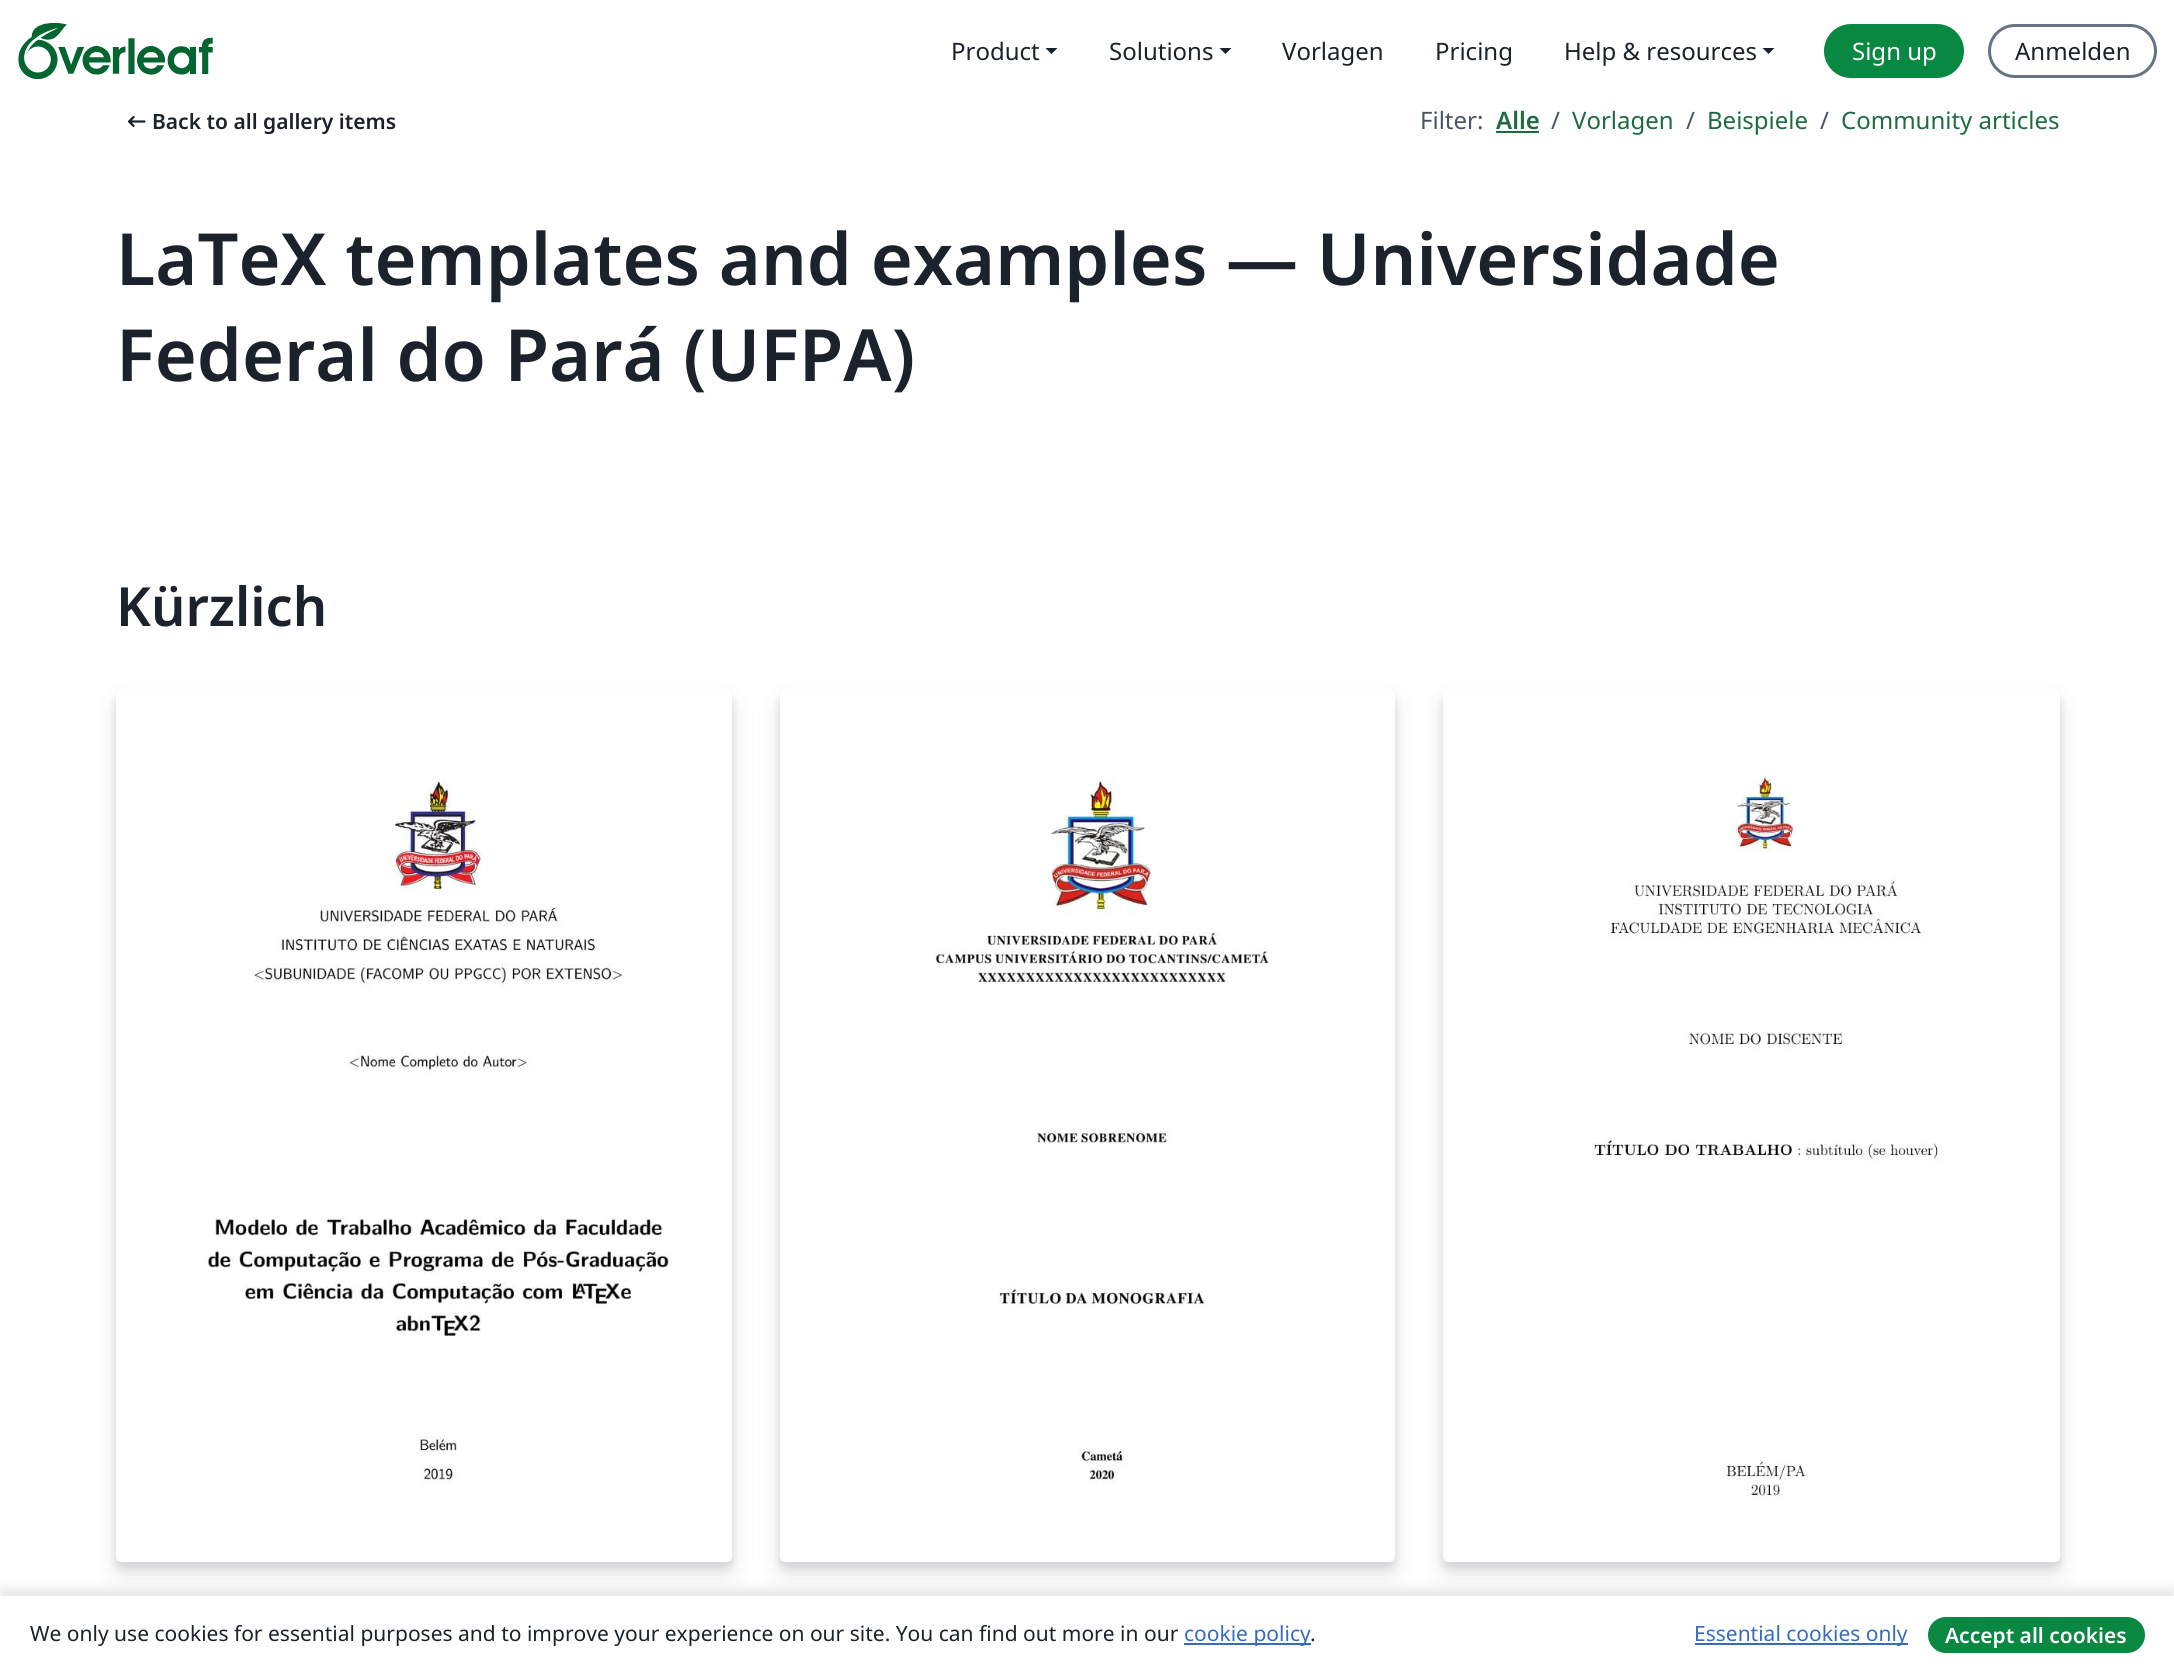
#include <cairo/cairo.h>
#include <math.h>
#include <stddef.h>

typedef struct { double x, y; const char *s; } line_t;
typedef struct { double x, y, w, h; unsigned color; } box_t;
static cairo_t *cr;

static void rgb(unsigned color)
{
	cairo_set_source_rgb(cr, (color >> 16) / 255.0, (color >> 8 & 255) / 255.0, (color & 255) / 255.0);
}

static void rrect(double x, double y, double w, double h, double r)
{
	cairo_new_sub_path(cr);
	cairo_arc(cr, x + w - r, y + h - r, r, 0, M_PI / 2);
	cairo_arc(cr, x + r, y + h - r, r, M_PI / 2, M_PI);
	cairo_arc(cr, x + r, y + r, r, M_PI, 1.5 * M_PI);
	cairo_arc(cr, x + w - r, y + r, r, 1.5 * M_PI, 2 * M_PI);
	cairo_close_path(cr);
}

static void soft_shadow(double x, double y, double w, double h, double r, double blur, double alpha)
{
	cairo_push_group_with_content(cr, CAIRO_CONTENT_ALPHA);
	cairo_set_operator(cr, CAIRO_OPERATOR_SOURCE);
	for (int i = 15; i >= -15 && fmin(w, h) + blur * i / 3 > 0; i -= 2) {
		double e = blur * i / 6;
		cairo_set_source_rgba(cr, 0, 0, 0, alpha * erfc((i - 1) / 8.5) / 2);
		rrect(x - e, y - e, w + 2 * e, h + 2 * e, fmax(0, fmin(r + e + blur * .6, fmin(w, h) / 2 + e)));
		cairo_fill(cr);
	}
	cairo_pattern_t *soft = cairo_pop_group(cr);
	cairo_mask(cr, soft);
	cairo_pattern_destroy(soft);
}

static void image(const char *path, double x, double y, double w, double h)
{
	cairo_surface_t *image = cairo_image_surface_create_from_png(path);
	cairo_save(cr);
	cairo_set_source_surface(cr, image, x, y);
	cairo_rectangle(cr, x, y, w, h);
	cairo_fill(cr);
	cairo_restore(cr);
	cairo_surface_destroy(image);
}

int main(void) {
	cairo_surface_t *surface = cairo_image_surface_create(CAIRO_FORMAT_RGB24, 2174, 1671);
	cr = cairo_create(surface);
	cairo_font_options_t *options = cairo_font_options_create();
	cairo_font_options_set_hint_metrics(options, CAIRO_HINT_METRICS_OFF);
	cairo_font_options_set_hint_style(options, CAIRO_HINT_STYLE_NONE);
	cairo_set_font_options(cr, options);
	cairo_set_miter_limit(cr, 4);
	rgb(0xffffff);
	cairo_paint(cr);
	image("img/1.png", 18, 23, 195, 56);
	rgb(0x1b222c);
	cairo_new_path(cr);
	cairo_move_to(cr, 1045.5, 48);
	cairo_line_to(cr, 1057.5, 48);
	cairo_line_to(cr, 1051.5, 54);
	cairo_close_path(cr);
	cairo_fill(cr);
	cairo_new_path(cr);
	cairo_move_to(cr, 1219.5, 48);
	cairo_line_to(cr, 1231.5, 48);
	cairo_line_to(cr, 1225.5, 54);
	cairo_close_path(cr);
	cairo_fill(cr);
	cairo_new_path(cr);
	cairo_move_to(cr, 1762.5, 48);
	cairo_line_to(cr, 1774.5, 48);
	cairo_line_to(cr, 1768.5, 54);
	cairo_close_path(cr);
	cairo_fill(cr);
	rgb(0x098842);
	rrect(1825.5, 25.5, 137, 51, 25.5);
	cairo_fill_preserve(cr);
	cairo_set_line_width(cr, 3);
	cairo_stroke(cr);
	rrect(1989.5, 25.5, 166, 51, 25.5);
	rgb(0x677283);
	cairo_stroke(cr);
	image("img/2.png", 128, 116, 18, 11);
	rgb(0x1e6b41);
	cairo_rectangle(cr, 1496, 131, 43, 2);
	cairo_fill(cr);
	cairo_save(cr);
	cairo_set_fill_rule(cr, CAIRO_FILL_RULE_EVEN_ODD);
	cairo_new_path(cr);
	cairo_move_to(cr, 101, 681);
	cairo_line_to(cr, 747, 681);
	cairo_line_to(cr, 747, 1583);
	cairo_line_to(cr, 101, 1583);
	cairo_close_path(cr);
	cairo_move_to(cr, 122, 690);
	cairo_line_to(cr, 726, 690);
	cairo_curve_to(cr, 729.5, 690, 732, 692.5, 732, 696);
	cairo_line_to(cr, 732, 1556);
	cairo_curve_to(cr, 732, 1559.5, 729.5, 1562, 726, 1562);
	cairo_line_to(cr, 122, 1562);
	cairo_curve_to(cr, 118.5, 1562, 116, 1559.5, 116, 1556);
	cairo_line_to(cr, 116, 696);
	cairo_curve_to(cr, 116, 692.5, 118.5, 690, 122, 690);
	cairo_close_path(cr);
	cairo_clip(cr);
	rgb(0x1e2530);
	soft_shadow(116, 696, 616, 872, 6, 4.5, 0.12);
	cairo_restore(cr);
	cairo_save(cr);
	cairo_set_fill_rule(cr, CAIRO_FILL_RULE_EVEN_ODD);
	cairo_new_path(cr);
	cairo_move_to(cr, 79, 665);
	cairo_line_to(cr, 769, 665);
	cairo_line_to(cr, 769, 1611);
	cairo_line_to(cr, 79, 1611);
	cairo_close_path(cr);
	cairo_move_to(cr, 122, 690);
	cairo_line_to(cr, 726, 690);
	cairo_curve_to(cr, 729.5, 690, 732, 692.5, 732, 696);
	cairo_line_to(cr, 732, 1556);
	cairo_curve_to(cr, 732, 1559.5, 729.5, 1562, 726, 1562);
	cairo_line_to(cr, 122, 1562);
	cairo_curve_to(cr, 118.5, 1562, 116, 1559.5, 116, 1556);
	cairo_line_to(cr, 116, 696);
	cairo_curve_to(cr, 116, 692.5, 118.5, 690, 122, 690);
	cairo_close_path(cr);
	cairo_clip(cr);
	rgb(0x1e2530);
	soft_shadow(116, 702, 616, 872, 6, 12, 0.12);
	cairo_restore(cr);
	image("img/3.png", 116, 777, 616, 785);
	cairo_save(cr);
	cairo_set_fill_rule(cr, CAIRO_FILL_RULE_EVEN_ODD);
	cairo_new_path(cr);
	cairo_move_to(cr, 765, 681);
	cairo_line_to(cr, 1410, 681);
	cairo_line_to(cr, 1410, 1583);
	cairo_line_to(cr, 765, 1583);
	cairo_close_path(cr);
	cairo_move_to(cr, 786, 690);
	cairo_line_to(cr, 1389, 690);
	cairo_curve_to(cr, 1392.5, 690, 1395, 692.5, 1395, 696);
	cairo_line_to(cr, 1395, 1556);
	cairo_curve_to(cr, 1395, 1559.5, 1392.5, 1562, 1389, 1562);
	cairo_line_to(cr, 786, 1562);
	cairo_curve_to(cr, 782.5, 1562, 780, 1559.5, 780, 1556);
	cairo_line_to(cr, 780, 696);
	cairo_curve_to(cr, 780, 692.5, 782.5, 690, 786, 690);
	cairo_close_path(cr);
	cairo_clip(cr);
	rgb(0x1e2530);
	soft_shadow(780, 696, 615, 872, 6, 4.5, 0.12);
	cairo_restore(cr);
	cairo_save(cr);
	cairo_set_fill_rule(cr, CAIRO_FILL_RULE_EVEN_ODD);
	cairo_new_path(cr);
	cairo_move_to(cr, 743, 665);
	cairo_line_to(cr, 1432, 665);
	cairo_line_to(cr, 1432, 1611);
	cairo_line_to(cr, 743, 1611);
	cairo_close_path(cr);
	cairo_move_to(cr, 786, 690);
	cairo_line_to(cr, 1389, 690);
	cairo_curve_to(cr, 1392.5, 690, 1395, 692.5, 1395, 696);
	cairo_line_to(cr, 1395, 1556);
	cairo_curve_to(cr, 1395, 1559.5, 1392.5, 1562, 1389, 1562);
	cairo_line_to(cr, 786, 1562);
	cairo_curve_to(cr, 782.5, 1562, 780, 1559.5, 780, 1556);
	cairo_line_to(cr, 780, 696);
	cairo_curve_to(cr, 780, 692.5, 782.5, 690, 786, 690);
	cairo_close_path(cr);
	cairo_clip(cr);
	rgb(0x1e2530);
	soft_shadow(780, 702, 615, 872, 6, 12, 0.12);
	cairo_restore(cr);
	image("img/4.png", 780, 777, 615, 785);
	cairo_save(cr);
	cairo_set_fill_rule(cr, CAIRO_FILL_RULE_EVEN_ODD);
	cairo_new_path(cr);
	cairo_move_to(cr, 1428, 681);
	cairo_line_to(cr, 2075, 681);
	cairo_line_to(cr, 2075, 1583);
	cairo_line_to(cr, 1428, 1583);
	cairo_close_path(cr);
	cairo_move_to(cr, 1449, 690);
	cairo_line_to(cr, 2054, 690);
	cairo_curve_to(cr, 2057.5, 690, 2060, 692.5, 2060, 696);
	cairo_line_to(cr, 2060, 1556);
	cairo_curve_to(cr, 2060, 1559.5, 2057.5, 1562, 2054, 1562);
	cairo_line_to(cr, 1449, 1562);
	cairo_curve_to(cr, 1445.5, 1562, 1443, 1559.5, 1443, 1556);
	cairo_line_to(cr, 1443, 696);
	cairo_curve_to(cr, 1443, 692.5, 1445.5, 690, 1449, 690);
	cairo_close_path(cr);
	cairo_clip(cr);
	rgb(0x1e2530);
	soft_shadow(1443, 696, 617, 872, 6, 4.5, 0.12);
	cairo_restore(cr);
	cairo_save(cr);
	cairo_set_fill_rule(cr, CAIRO_FILL_RULE_EVEN_ODD);
	cairo_new_path(cr);
	cairo_move_to(cr, 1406, 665);
	cairo_line_to(cr, 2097, 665);
	cairo_line_to(cr, 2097, 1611);
	cairo_line_to(cr, 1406, 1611);
	cairo_close_path(cr);
	cairo_move_to(cr, 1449, 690);
	cairo_line_to(cr, 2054, 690);
	cairo_curve_to(cr, 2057.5, 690, 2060, 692.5, 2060, 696);
	cairo_line_to(cr, 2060, 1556);
	cairo_curve_to(cr, 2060, 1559.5, 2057.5, 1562, 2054, 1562);
	cairo_line_to(cr, 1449, 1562);
	cairo_curve_to(cr, 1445.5, 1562, 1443, 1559.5, 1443, 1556);
	cairo_line_to(cr, 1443, 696);
	cairo_curve_to(cr, 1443, 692.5, 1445.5, 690, 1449, 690);
	cairo_close_path(cr);
	cairo_clip(cr);
	rgb(0x1e2530);
	soft_shadow(1443, 702, 617, 872, 6, 12, 0.12);
	cairo_restore(cr);
	image("img/5.png", 1443, 777, 616, 785);
	rgb(0x000000);
	soft_shadow(0, 1589, 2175, 75, 0, 6, 0.1);
	{
		static const box_t items[] = {
			{0, 1596, 2174, 75, 0xffffff},
			{1184, 1643, 127, 2, 0x366cbf},
			{1695, 1643, 213, 2, 0x366cbf},
		};
		for (size_t i = 0; i < sizeof items / sizeof *items; i++) {
			rgb(items[i].color);
			cairo_rectangle(cr, items[i].x, items[i].y, items[i].w, items[i].h);
			cairo_fill(cr);
		}
	}
	rgb(0x098842);
	rrect(1928, 1617, 217, 36, 18);
	cairo_fill(cr);
	cairo_select_font_face(cr, "Noto Sans", CAIRO_FONT_SLANT_NORMAL, CAIRO_FONT_WEIGHT_NORMAL);
	cairo_set_font_size(cr, 24);
	rgb(0x1b222c);
	{
		static const line_t items[] = {
			{951, 60, "Product"},
			{1109, 60, "Solutions"},
			{1282, 60, "Vorlagen"},
			{1435, 60, "Pricing"},
			{1564, 60, "Help & resources"},
		};
		for (size_t i = 0; i < sizeof items / sizeof *items; i++) {
			cairo_move_to(cr, items[i].x, items[i].y);
			cairo_show_text(cr, items[i].s);
		}
	}
	rgb(0xffffff);
	cairo_move_to(cr, 1852, 60);
	cairo_show_text(cr, "Sign up");
	rgb(0x1b222c);
	cairo_move_to(cr, 2015, 60);
	cairo_show_text(cr, "Anmelden");
	cairo_select_font_face(cr, "Noto Sans SemiBold", CAIRO_FONT_SLANT_NORMAL, CAIRO_FONT_WEIGHT_NORMAL);
	cairo_set_font_size(cr, 21);
	cairo_move_to(cr, 152, 129);
	cairo_show_text(cr, "Back to all gallery items");
	cairo_select_font_face(cr, "Noto Sans", CAIRO_FONT_SLANT_NORMAL, CAIRO_FONT_WEIGHT_NORMAL);
	cairo_set_font_size(cr, 24);
	rgb(0x495365);
	cairo_move_to(cr, 1420, 129);
	cairo_show_text(cr, "Filter:");
	cairo_select_font_face(cr, "Noto Sans SemiBold", CAIRO_FONT_SLANT_NORMAL, CAIRO_FONT_WEIGHT_NORMAL);
	rgb(0x1e6b41);
	cairo_move_to(cr, 1496, 129);
	cairo_show_text(cr, "Alle");
	cairo_select_font_face(cr, "Noto Sans", CAIRO_FONT_SLANT_NORMAL, CAIRO_FONT_WEIGHT_NORMAL);
	rgb(0x495365);
	cairo_move_to(cr, 1551, 129);
	cairo_show_text(cr, "/");
	rgb(0x1e6b41);
	cairo_move_to(cr, 1572, 129);
	cairo_show_text(cr, "Vorlagen");
	rgb(0x495365);
	cairo_move_to(cr, 1686, 129);
	cairo_show_text(cr, "/");
	rgb(0x1e6b41);
	cairo_move_to(cr, 1707, 129);
	cairo_show_text(cr, "Beispiele");
	rgb(0x495365);
	cairo_move_to(cr, 1820, 129);
	cairo_show_text(cr, "/");
	rgb(0x1e6b41);
	cairo_move_to(cr, 1841, 129);
	cairo_show_text(cr, "Community articles");
	cairo_select_font_face(cr, "Noto Sans SemiBold", CAIRO_FONT_SLANT_NORMAL, CAIRO_FONT_WEIGHT_NORMAL);
	cairo_set_font_size(cr, 72);
	rgb(0x1b222c);
	cairo_move_to(cr, 116, 285);
	cairo_show_text(cr, "LaTeX templates and examples — Universidade");
	cairo_move_to(cr, 116, 381);
	cairo_show_text(cr, "Federal do Pará (UFPA)");
	cairo_set_font_size(cr, 54);
	cairo_move_to(cr, 116, 626);
	cairo_show_text(cr, "Kürzlich");
	cairo_select_font_face(cr, "Noto Sans", CAIRO_FONT_SLANT_NORMAL, CAIRO_FONT_WEIGHT_NORMAL);
	cairo_set_font_size(cr, 21);
	cairo_move_to(cr, 30, 1641);
	cairo_show_text(cr, "We only use cookies for essential purposes and to improve your experience on our site. You can find out more in our");
	rgb(0x366cbf);
	cairo_move_to(cr, 1184, 1641);
	cairo_show_text(cr, "cookie policy");
	rgb(0x1b222c);
	cairo_move_to(cr, 1310, 1641);
	cairo_show_text(cr, ".");
	rgb(0x366cbf);
	cairo_move_to(cr, 1694, 1641);
	cairo_show_text(cr, "Essential cookies only");
	cairo_select_font_face(cr, "Noto Sans SemiBold", CAIRO_FONT_SLANT_NORMAL, CAIRO_FONT_WEIGHT_NORMAL);
	rgb(0xffffff);
	cairo_move_to(cr, 1945, 1643);
	cairo_show_text(cr, "Accept all cookies");
	cairo_surface_write_to_png(surface, "page.png");
	cairo_font_options_destroy(options);
	cairo_destroy(cr);
	cairo_surface_destroy(surface);
	return 0;
}
